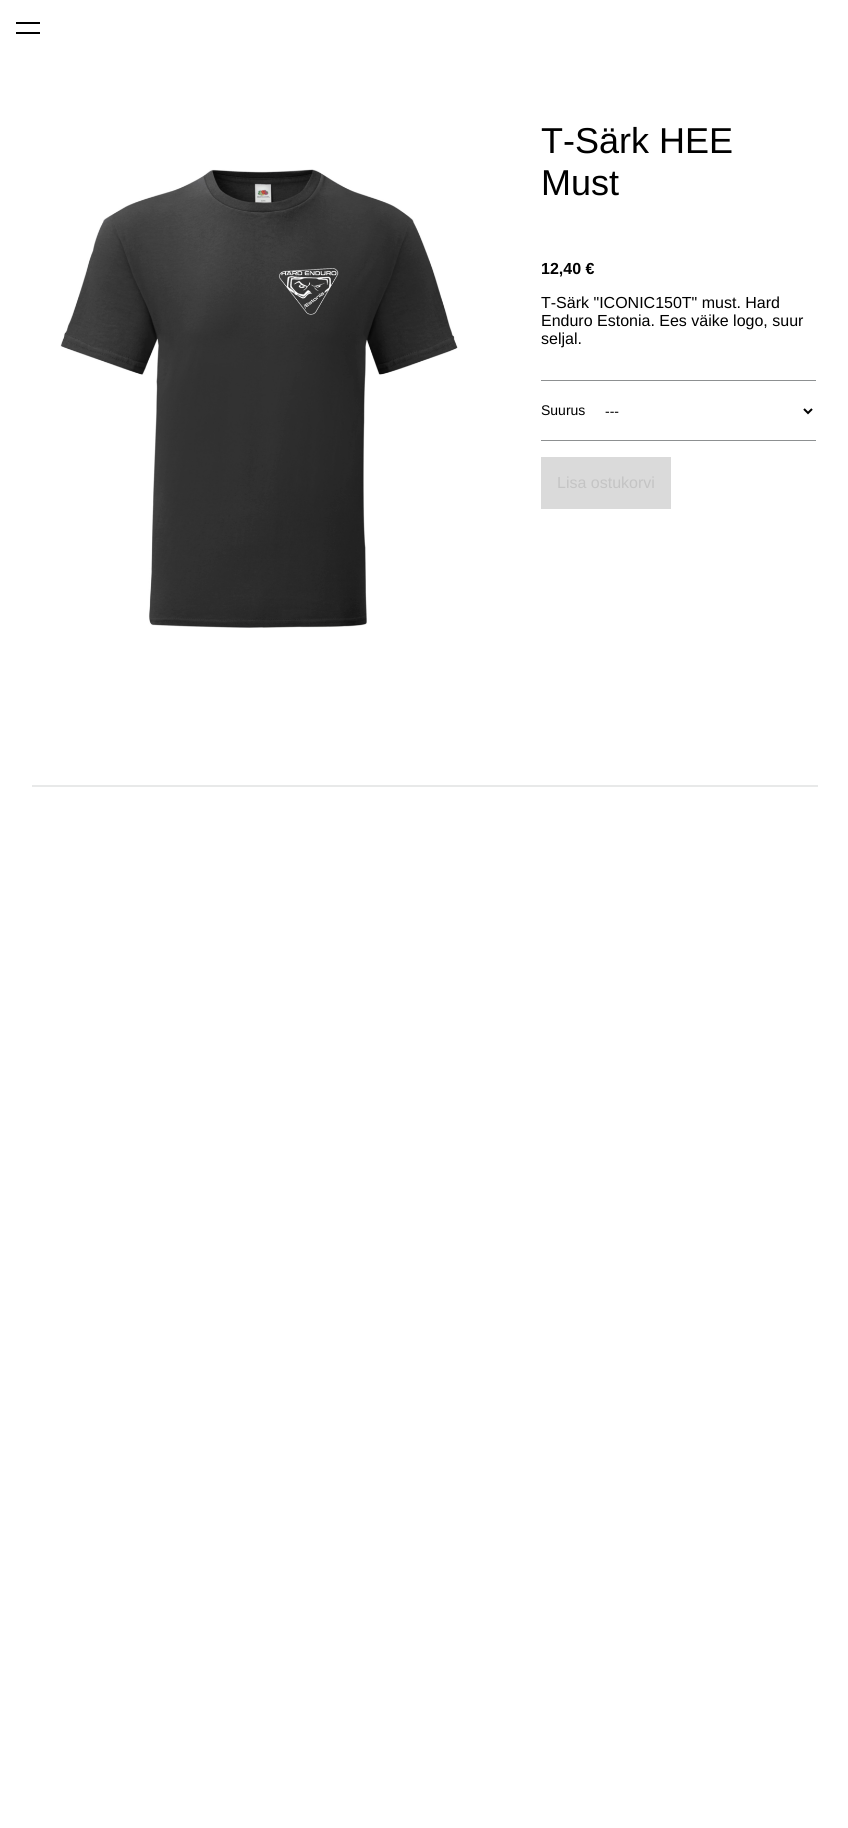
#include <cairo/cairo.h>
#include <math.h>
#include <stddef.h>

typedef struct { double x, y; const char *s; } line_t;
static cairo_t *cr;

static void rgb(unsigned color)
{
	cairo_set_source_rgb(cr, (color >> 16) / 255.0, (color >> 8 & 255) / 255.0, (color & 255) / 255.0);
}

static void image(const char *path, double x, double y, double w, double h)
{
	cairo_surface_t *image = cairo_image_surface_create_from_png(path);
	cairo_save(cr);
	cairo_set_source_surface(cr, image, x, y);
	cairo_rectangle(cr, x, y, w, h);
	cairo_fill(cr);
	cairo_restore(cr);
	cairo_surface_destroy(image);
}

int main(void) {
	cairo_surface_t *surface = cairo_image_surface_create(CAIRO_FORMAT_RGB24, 848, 1828);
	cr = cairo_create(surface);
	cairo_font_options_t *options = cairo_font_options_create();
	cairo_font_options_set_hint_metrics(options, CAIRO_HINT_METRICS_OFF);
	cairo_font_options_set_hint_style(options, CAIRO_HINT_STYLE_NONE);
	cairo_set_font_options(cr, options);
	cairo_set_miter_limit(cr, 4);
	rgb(0xffffff);
	cairo_paint(cr);
	rgb(0x000000);
	cairo_rectangle(cr, 16, 22, 24, 2);
	cairo_fill(cr);
	cairo_rectangle(cr, 16, 32, 24, 2);
	cairo_fill(cr);
	image("img/1.png", 60, 169, 398, 459);
	rgb(0x8d9091);
	cairo_rectangle(cr, 541, 380, 275, 1);
	cairo_fill(cr);
	cairo_rectangle(cr, 541, 440, 275, 1);
	cairo_fill(cr);
	cairo_new_path(cr);
	cairo_move_to(cr, 804, 409);
	cairo_line_to(cr, 808, 413);
	cairo_line_to(cr, 812, 409);
	rgb(0x000000);
	cairo_stroke(cr);
	rgb(0xdadada);
	cairo_rectangle(cr, 541, 457, 130, 52);
	cairo_fill(cr);
	rgb(0xe8e9e9);
	cairo_rectangle(cr, 32, 785, 786, 2);
	cairo_fill(cr);
	cairo_select_font_face(cr, "Liberation Sans", CAIRO_FONT_SLANT_NORMAL, CAIRO_FONT_WEIGHT_NORMAL);
	cairo_set_font_size(cr, 36);
	rgb(0x000000);
	cairo_move_to(cr, 541, 153);
	cairo_show_text(cr, "T-Särk HEE");
	cairo_move_to(cr, 541, 195);
	cairo_show_text(cr, "Must");
	cairo_select_font_face(cr, "Liberation Sans", CAIRO_FONT_SLANT_NORMAL, CAIRO_FONT_WEIGHT_BOLD);
	cairo_set_font_size(cr, 16);
	cairo_move_to(cr, 541, 274);
	cairo_show_text(cr, "12,40 €");
	cairo_select_font_face(cr, "Liberation Sans", CAIRO_FONT_SLANT_NORMAL, CAIRO_FONT_WEIGHT_NORMAL);
	{
		static const line_t items[] = {
			{541, 308, "T-Särk \"ICONIC150T\" must. Hard"},
			{541, 326, "Enduro Estonia. Ees väike logo, suur"},
			{541, 344, "seljal."},
		};
		for (size_t i = 0; i < sizeof items / sizeof *items; i++) {
			cairo_move_to(cr, items[i].x, items[i].y);
			cairo_show_text(cr, items[i].s);
		}
	}
	cairo_set_font_size(cr, 14);
	cairo_move_to(cr, 541, 415);
	cairo_show_text(cr, "Suurus");
	cairo_move_to(cr, 605, 416);
	cairo_show_text(cr, "---");
	cairo_set_font_size(cr, 16);
	rgb(0xc4c4c4);
	cairo_move_to(cr, 557, 488);
	cairo_show_text(cr, "Lisa ostukorvi");
	cairo_surface_write_to_png(surface, "page.png");
	cairo_font_options_destroy(options);
	cairo_destroy(cr);
	cairo_surface_destroy(surface);
	return 0;
}
